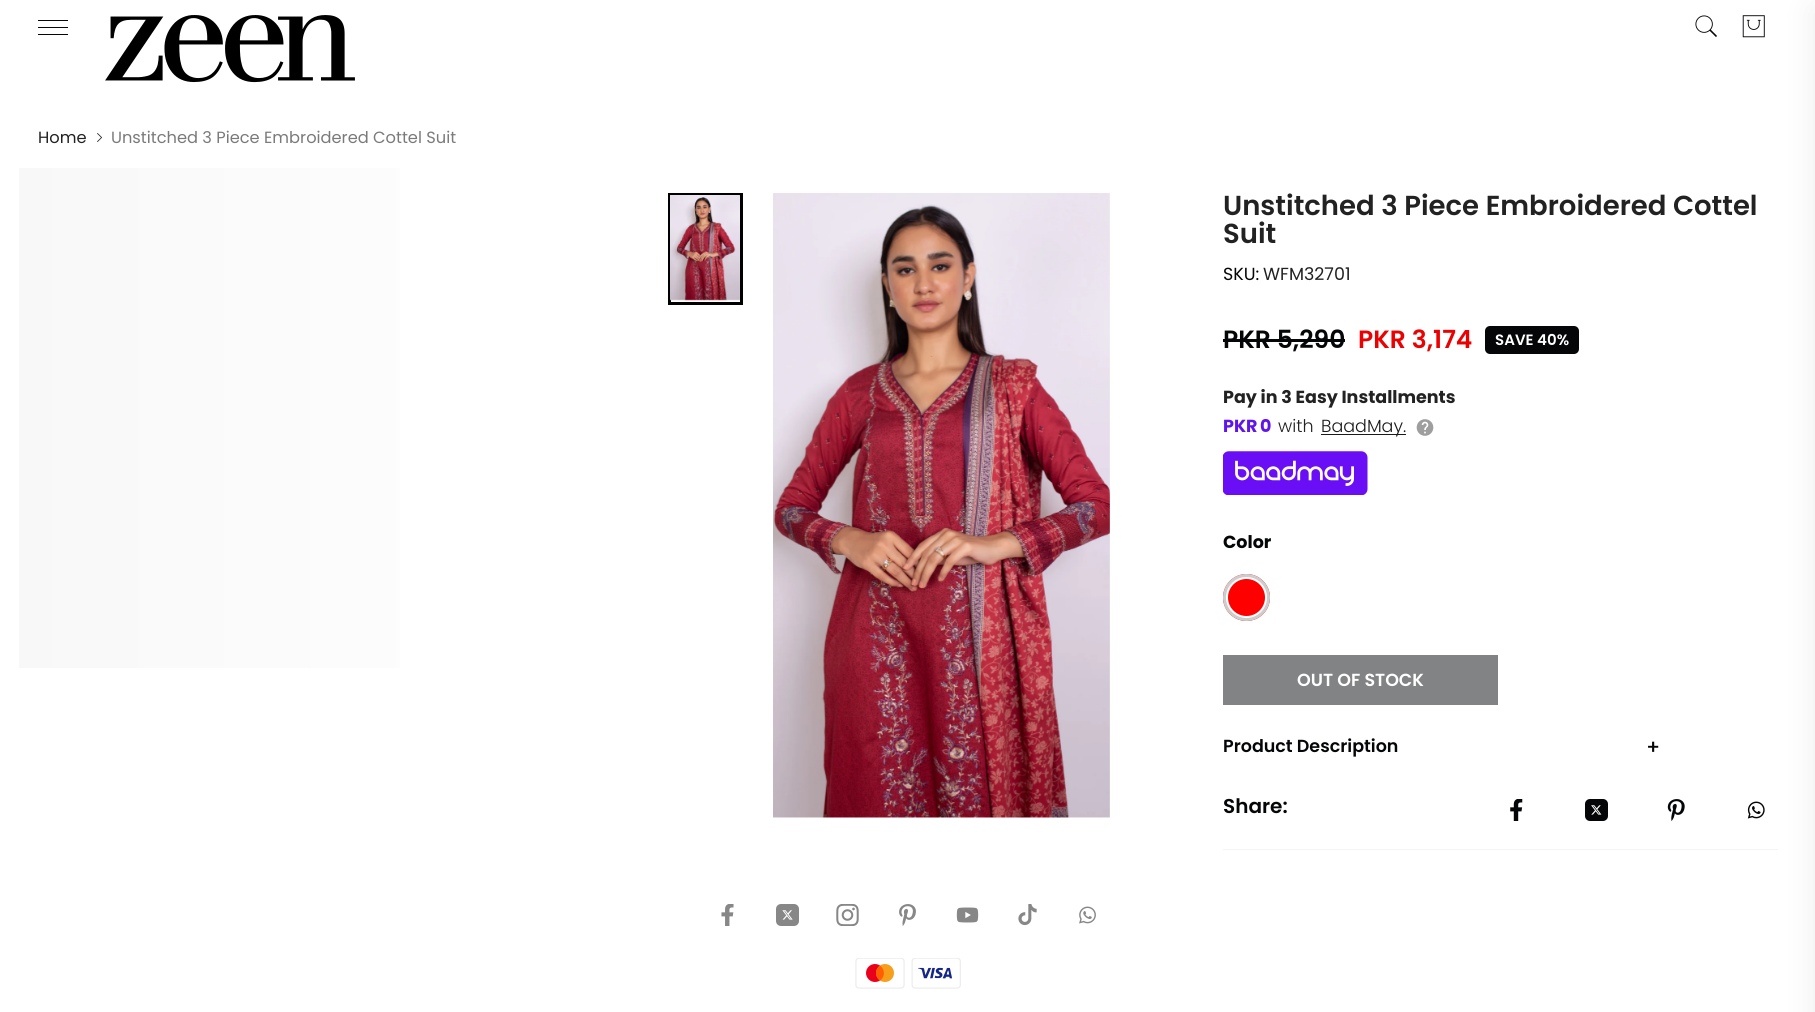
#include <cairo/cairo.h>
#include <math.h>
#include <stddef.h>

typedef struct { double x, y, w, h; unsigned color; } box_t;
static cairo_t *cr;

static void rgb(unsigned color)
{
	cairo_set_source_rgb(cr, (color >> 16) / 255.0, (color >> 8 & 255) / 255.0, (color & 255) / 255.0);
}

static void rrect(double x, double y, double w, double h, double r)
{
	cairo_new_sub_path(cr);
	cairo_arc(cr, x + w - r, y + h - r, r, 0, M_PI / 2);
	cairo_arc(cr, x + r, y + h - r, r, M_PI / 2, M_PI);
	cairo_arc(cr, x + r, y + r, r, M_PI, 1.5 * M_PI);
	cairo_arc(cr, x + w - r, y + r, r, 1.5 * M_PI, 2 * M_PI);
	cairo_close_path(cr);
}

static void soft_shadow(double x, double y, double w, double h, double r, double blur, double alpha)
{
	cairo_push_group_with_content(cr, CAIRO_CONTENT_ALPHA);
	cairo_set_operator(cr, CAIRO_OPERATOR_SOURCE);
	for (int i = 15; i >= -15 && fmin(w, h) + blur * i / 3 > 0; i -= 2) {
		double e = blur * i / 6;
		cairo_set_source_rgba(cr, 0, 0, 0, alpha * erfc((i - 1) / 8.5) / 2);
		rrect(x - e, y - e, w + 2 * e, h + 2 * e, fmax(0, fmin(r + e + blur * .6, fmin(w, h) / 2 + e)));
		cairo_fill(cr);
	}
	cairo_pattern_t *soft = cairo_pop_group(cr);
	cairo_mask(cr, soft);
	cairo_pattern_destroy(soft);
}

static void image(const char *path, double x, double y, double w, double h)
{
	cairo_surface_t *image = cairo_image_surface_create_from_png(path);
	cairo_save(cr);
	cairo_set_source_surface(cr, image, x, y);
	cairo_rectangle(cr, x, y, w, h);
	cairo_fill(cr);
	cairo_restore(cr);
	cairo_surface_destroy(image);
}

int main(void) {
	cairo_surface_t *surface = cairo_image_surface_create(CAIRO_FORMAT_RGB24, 1815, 1012);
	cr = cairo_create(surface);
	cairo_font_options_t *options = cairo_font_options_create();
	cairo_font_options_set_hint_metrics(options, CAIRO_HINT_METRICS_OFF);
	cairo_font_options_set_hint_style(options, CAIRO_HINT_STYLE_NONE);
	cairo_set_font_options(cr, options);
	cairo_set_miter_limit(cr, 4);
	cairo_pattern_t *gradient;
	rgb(0xffffff);
	cairo_paint(cr);
	{
		static const box_t items[] = {
			{38, 20, 30, 1, 0x050608},
			{38, 27, 30, 1, 0x050608},
			{38, 34, 30, 1, 0x050608},
		};
		for (size_t i = 0; i < sizeof items / sizeof *items; i++) {
			rgb(items[i].color);
			cairo_rectangle(cr, items[i].x, items[i].y, items[i].w, items[i].h);
			cairo_fill(cr);
		}
	}
	image("img/1.png", 105, 15, 250, 68);
	image("img/2.png", 1695, 15, 22, 22);
	image("img/3.png", 1742, 15, 23, 23);
	image("img/4.png", 97, 133, 5, 9);
	gradient = cairo_pattern_create_linear(611, 418, 19, 418);
	cairo_pattern_add_color_stop_rgba(gradient, 0, 1, 1, 1, 1);
	cairo_pattern_add_color_stop_rgba(gradient, 1, 0.973, 0.973, 0.973, 1);
	cairo_set_source(cr, gradient);
	cairo_pattern_destroy(gradient);
	cairo_rectangle(cr, 19, 168, 381, 500);
	cairo_fill(cr);
	cairo_rectangle(cr, 669.5, 194.5, 72, 109);
	rgb(0x000000);
	cairo_set_line_width(cr, 3);
	cairo_stroke(cr);
	image("img/5.png", 670, 195, 70, 106);
	image("img/6.png", 773, 193, 337, 625);
	rgb(0x050608);
	cairo_rectangle(cr, 1223, 339, 122, 3);
	cairo_fill(cr);
	rrect(1485, 326, 94, 28, 5);
	cairo_fill(cr);
	rgb(0x1a1a1a);
	cairo_rectangle(cr, 1321, 434, 85, 1);
	cairo_fill(cr);
	image("img/7.png", 1416, 419, 18, 17);
	image("img/8.png", 1223, 451, 145, 44);
	rgb(0xff0000);
	cairo_arc(cr, 1246.5, 597.5, 23.5, 0, 2 * M_PI);
	cairo_fill(cr);
	cairo_arc(cr, 1246.5, 597.5, 20, 0, 2 * M_PI);
	rgb(0xffffff);
	cairo_stroke(cr);
	cairo_arc(cr, 1246.5, 597.5, 22, 0, 2 * M_PI);
	rgb(0xcdcdce);
	cairo_stroke(cr);
	rgb(0x828384);
	cairo_rectangle(cr, 1223, 655, 275, 50);
	cairo_fill(cr);
	rgb(0xf5f5f5);
	cairo_rectangle(cr, 1223, 849, 555, 1);
	cairo_fill(cr);
	image("img/9.png", 1510, 799, 13, 22);
	image("img/10.png", 1585, 799, 23, 22);
	image("img/11.png", 1667, 799, 18, 22);
	image("img/12.png", 1747, 801, 18, 18);
	rgb(0x959da5);
	soft_shadow(1815, 10, 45, 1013, 0, 15, 0.2);
	image("img/13.png", 721, 904, 13, 22);
	image("img/14.png", 776, 904, 23, 22);
	image("img/15.png", 836, 904, 23, 22);
	image("img/16.png", 899, 904, 17, 22);
	image("img/17.png", 956, 907, 23, 16);
	image("img/18.png", 1018, 904, 19, 22);
	image("img/19.png", 1079, 906, 17, 18);
	image("img/20.png", 855, 958, 50, 31);
	image("img/21.png", 911, 958, 50, 31);
	cairo_select_font_face(cr, "Poppins", CAIRO_FONT_SLANT_NORMAL, CAIRO_FONT_WEIGHT_NORMAL);
	cairo_set_font_size(cr, 16.25);
	rgb(0x222222);
	cairo_move_to(cr, 38, 143);
	cairo_show_text(cr, "Home");
	rgb(0x7a7a7a);
	cairo_move_to(cr, 111, 143);
	cairo_show_text(cr, "Unstitched 3 Piece Embroidered Cottel Suit");
	cairo_select_font_face(cr, "Poppins SemiBold", CAIRO_FONT_SLANT_NORMAL, CAIRO_FONT_WEIGHT_NORMAL);
	cairo_set_font_size(cr, 27.5);
	rgb(0x222222);
	cairo_move_to(cr, 1223, 215);
	cairo_show_text(cr, "Unstitched 3 Piece Embroidered Cottel");
	cairo_move_to(cr, 1223, 243);
	cairo_show_text(cr, "Suit");
	cairo_select_font_face(cr, "Poppins", CAIRO_FONT_SLANT_NORMAL, CAIRO_FONT_WEIGHT_NORMAL);
	cairo_set_font_size(cr, 17.5);
	rgb(0x050608);
	cairo_move_to(cr, 1223, 280);
	cairo_show_text(cr, "SKU:");
	rgb(0x222222);
	cairo_move_to(cr, 1263, 280);
	cairo_show_text(cr, "WFM32701");
	cairo_select_font_face(cr, "Poppins SemiBold", CAIRO_FONT_SLANT_NORMAL, CAIRO_FONT_WEIGHT_NORMAL);
	cairo_set_font_size(cr, 25);
	rgb(0x050608);
	cairo_move_to(cr, 1223, 348);
	cairo_show_text(cr, "PKR 5,290");
	rgb(0xec0101);
	cairo_move_to(cr, 1358, 348);
	cairo_show_text(cr, "PKR 3,174");
	cairo_set_font_size(cr, 15);
	rgb(0xffffff);
	cairo_move_to(cr, 1495, 345);
	cairo_show_text(cr, "SAVE 40%");
	cairo_select_font_face(cr, "Poppins", CAIRO_FONT_SLANT_NORMAL, CAIRO_FONT_WEIGHT_BOLD);
	cairo_set_font_size(cr, 17.5);
	rgb(0x222222);
	cairo_move_to(cr, 1223, 403);
	cairo_show_text(cr, "Pay in 3 Easy Installments");
	rgb(0x6016eb);
	cairo_move_to(cr, 1223, 432);
	cairo_show_text(cr, "PKR");
	cairo_move_to(cr, 1260, 432);
	cairo_show_text(cr, "0");
	cairo_select_font_face(cr, "Poppins Light", CAIRO_FONT_SLANT_NORMAL, CAIRO_FONT_WEIGHT_NORMAL);
	rgb(0x222222);
	cairo_move_to(cr, 1278, 432);
	cairo_show_text(cr, "with");
	rgb(0x1a1a1a);
	cairo_move_to(cr, 1321, 432);
	cairo_show_text(cr, "BaadMay.");
	cairo_select_font_face(cr, "Poppins", CAIRO_FONT_SLANT_NORMAL, CAIRO_FONT_WEIGHT_BOLD);
	rgb(0x050608);
	cairo_move_to(cr, 1223, 548);
	cairo_show_text(cr, "Color");
	cairo_select_font_face(cr, "Poppins SemiBold", CAIRO_FONT_SLANT_NORMAL, CAIRO_FONT_WEIGHT_NORMAL);
	rgb(0xffffff);
	cairo_move_to(cr, 1297, 686);
	cairo_show_text(cr, "OUT OF STOCK");
	rgb(0x050608);
	cairo_move_to(cr, 1223, 752);
	cairo_show_text(cr, "Product Description");
	cairo_select_font_face(cr, "Poppins Medium", CAIRO_FONT_SLANT_NORMAL, CAIRO_FONT_WEIGHT_NORMAL);
	cairo_set_font_size(cr, 20);
	cairo_move_to(cr, 1646, 754);
	cairo_show_text(cr, "+");
	cairo_select_font_face(cr, "Poppins SemiBold", CAIRO_FONT_SLANT_NORMAL, CAIRO_FONT_WEIGHT_NORMAL);
	cairo_move_to(cr, 1223, 813);
	cairo_show_text(cr, "Share:");
	cairo_surface_write_to_png(surface, "page.png");
	cairo_font_options_destroy(options);
	cairo_destroy(cr);
	cairo_surface_destroy(surface);
	return 0;
}
